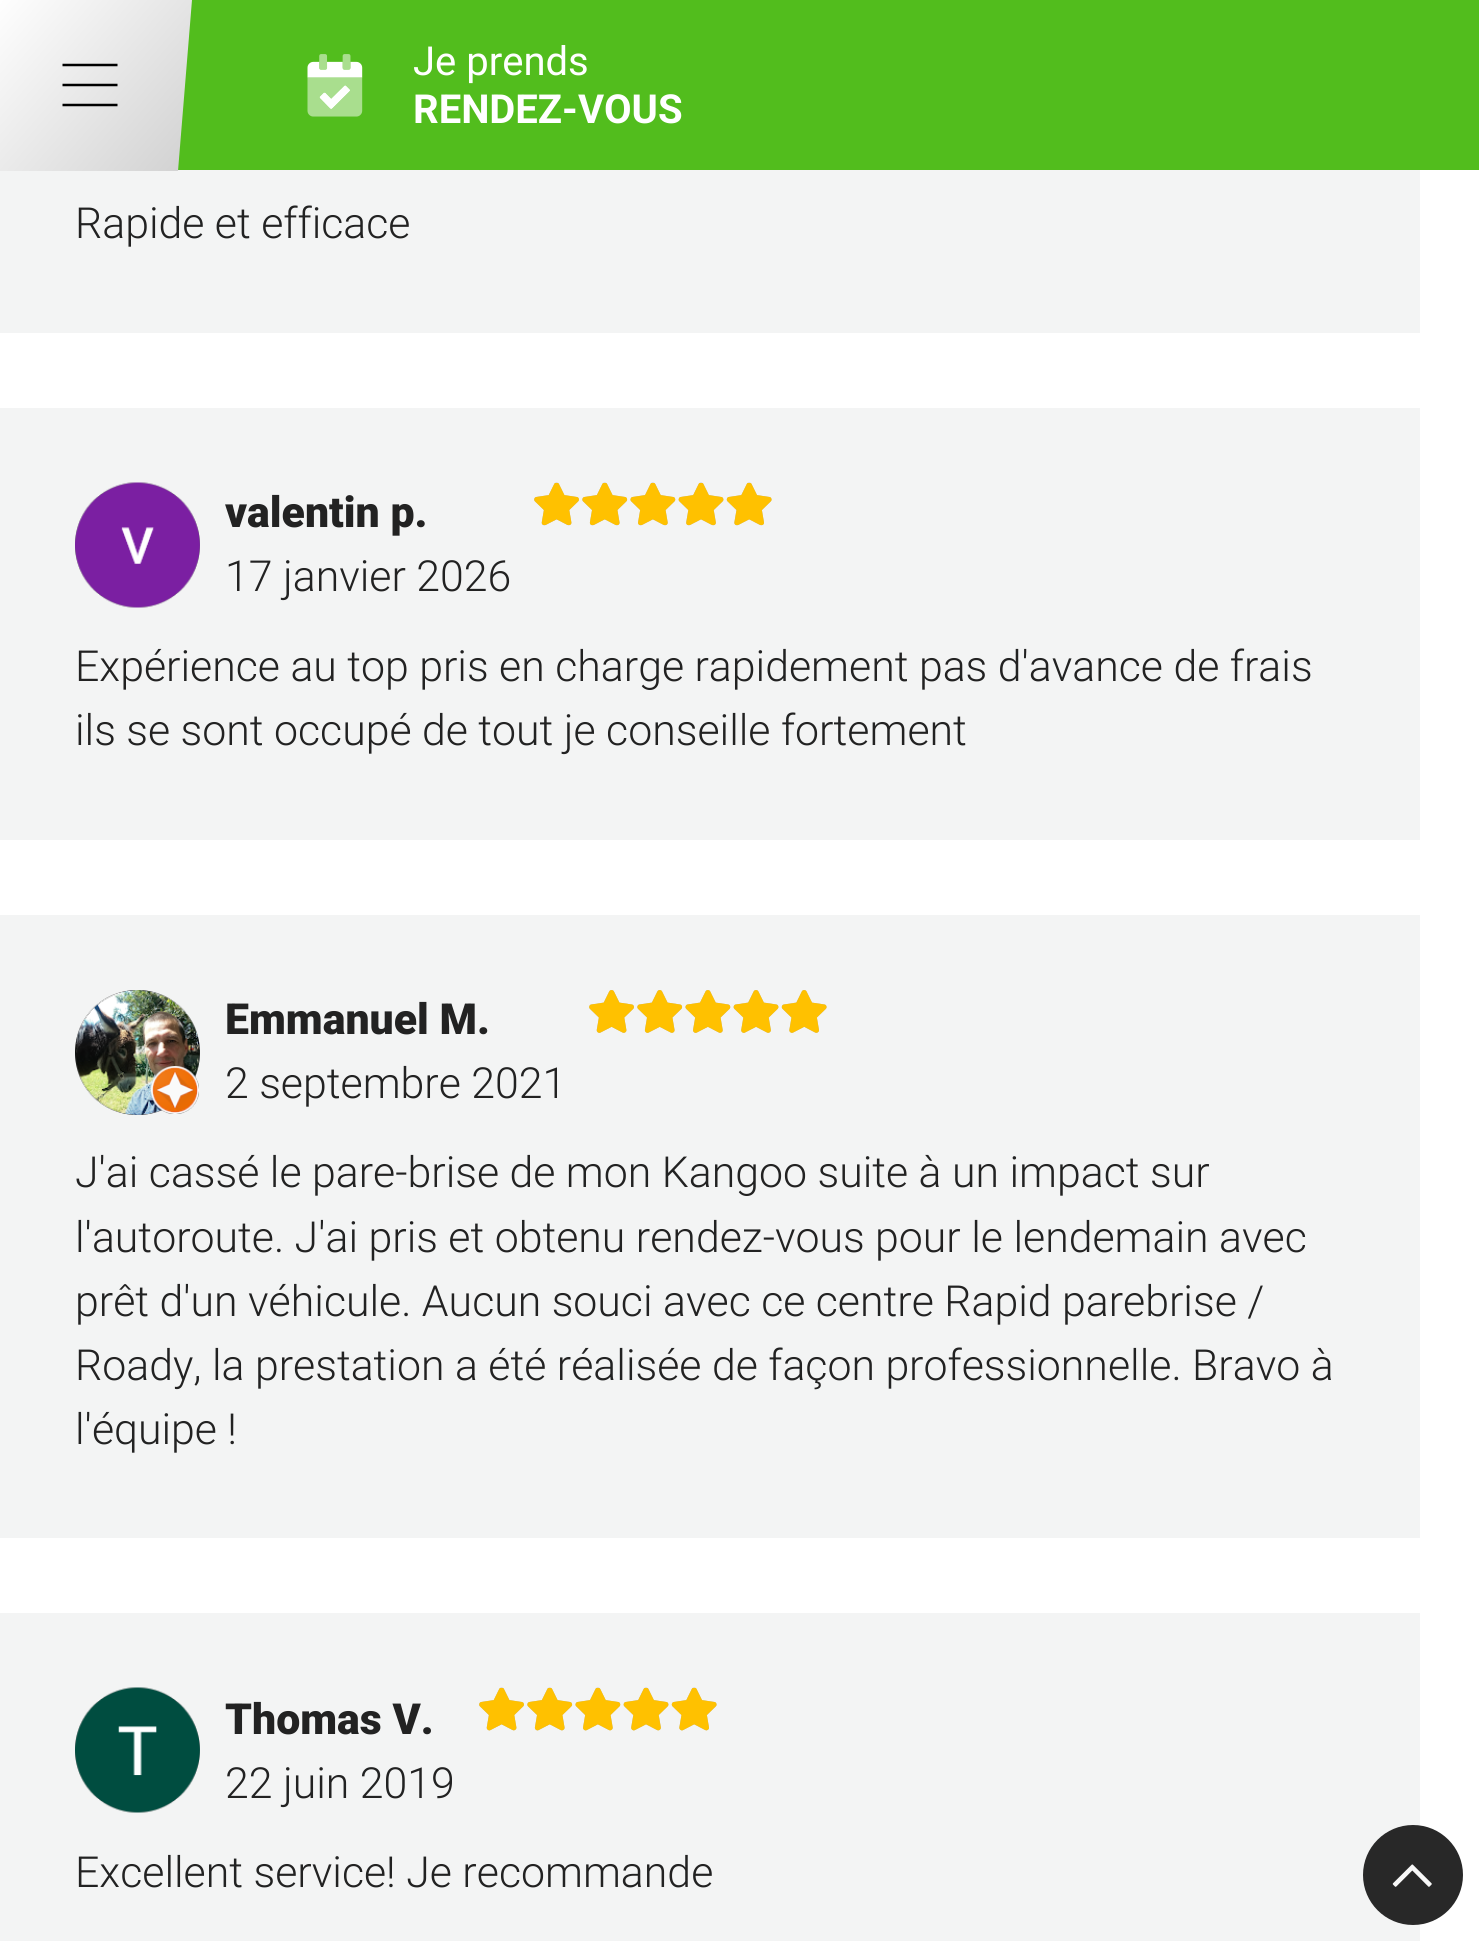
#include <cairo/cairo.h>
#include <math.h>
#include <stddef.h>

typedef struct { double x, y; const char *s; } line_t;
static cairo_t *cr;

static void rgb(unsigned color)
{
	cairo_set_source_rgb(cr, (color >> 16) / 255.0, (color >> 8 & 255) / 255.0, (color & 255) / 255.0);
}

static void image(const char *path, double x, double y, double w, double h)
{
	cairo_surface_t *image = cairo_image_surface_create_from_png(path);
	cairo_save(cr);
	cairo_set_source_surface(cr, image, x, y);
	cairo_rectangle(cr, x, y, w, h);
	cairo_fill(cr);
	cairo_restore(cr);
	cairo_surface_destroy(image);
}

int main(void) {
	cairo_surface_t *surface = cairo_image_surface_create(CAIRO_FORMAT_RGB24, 1479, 1941);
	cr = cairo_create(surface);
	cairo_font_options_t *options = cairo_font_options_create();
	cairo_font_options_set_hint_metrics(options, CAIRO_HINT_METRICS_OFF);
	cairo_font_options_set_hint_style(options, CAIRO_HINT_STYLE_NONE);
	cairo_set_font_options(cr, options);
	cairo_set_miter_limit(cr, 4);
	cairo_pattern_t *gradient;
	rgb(0xffffff);
	cairo_paint(cr);
	rgb(0x52bd1d);
	cairo_rectangle(cr, 178, 0, 1301, 170);
	cairo_fill(cr);
	rgb(0xf3f4f4);
	cairo_rectangle(cr, 0, 170, 1420, 163);
	cairo_fill(cr);
	gradient = cairo_pattern_create_linear(-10, 2.7, 180, 168);
	cairo_pattern_add_color_stop_rgba(gradient, 0, 1, 1, 1, 1);
	cairo_pattern_add_color_stop_rgba(gradient, 1, 0.827, 0.827, 0.827, 1);
	cairo_set_source(cr, gradient);
	cairo_pattern_destroy(gradient);
	cairo_new_path(cr);
	cairo_move_to(cr, -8, 0);
	cairo_line_to(cr, 192, 0);
	cairo_line_to(cr, 178, 171);
	cairo_line_to(cr, -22, 171);
	cairo_close_path(cr);
	cairo_fill(cr);
	cairo_new_path(cr);
	cairo_move_to(cr, 62.5, 65);
	cairo_line_to(cr, 117.5, 65);
	cairo_move_to(cr, 62.5, 85);
	cairo_line_to(cr, 117.5, 85);
	cairo_move_to(cr, 62.5, 105);
	cairo_line_to(cr, 117.5, 105);
	rgb(0x000000);
	cairo_set_line_width(cr, 2.5);
	cairo_stroke(cr);
	image("img/2.png", 307, 61, 56, 48);
	image("img/1.png", 307, 54, 56, 63);
	rgb(0xf3f4f4);
	cairo_rectangle(cr, 0, 1613, 1420, 328);
	cairo_fill(cr);
	cairo_set_source_rgba(cr, 0.133, 0.133, 0.133, 0.97);
	cairo_arc(cr, 1413, 1875, 50, 0, 2 * M_PI);
	cairo_fill(cr);
	image("img/3.png", 1392, 1864, 40, 23);
	rgb(0xf3f4f4);
	cairo_rectangle(cr, 0, 408, 1420, 432);
	cairo_fill(cr);
	image("img/4.png", 75, 482, 125, 126);
	image("img/5.png", 534, 482, 238, 44);
	image("img/6.png", 534, 483, 238, 42);
	cairo_rectangle(cr, 0, 915, 1420, 623);
	cairo_fill(cr);
	image("img/7.png", 75, 990, 125, 125);
	image("img/8.png", 589, 990, 238, 43);
	image("img/9.png", 589, 990, 238, 43);
	image("img/10.png", 75, 1687, 125, 126);
	image("img/5.png", 479, 1687, 238, 44);
	image("img/11.png", 479, 1688, 238, 43);
	cairo_select_font_face(cr, "Roboto", CAIRO_FONT_SLANT_NORMAL, CAIRO_FONT_WEIGHT_NORMAL);
	cairo_set_font_size(cr, 40);
	rgb(0xffffff);
	cairo_move_to(cr, 413, 75);
	cairo_show_text(cr, "Je prends");
	cairo_select_font_face(cr, "Roboto", CAIRO_FONT_SLANT_NORMAL, CAIRO_FONT_WEIGHT_BOLD);
	cairo_move_to(cr, 413, 123);
	cairo_show_text(cr, "RENDEZ-VOUS");
	cairo_select_font_face(cr, "Roboto Light", CAIRO_FONT_SLANT_NORMAL, CAIRO_FONT_WEIGHT_NORMAL);
	cairo_set_font_size(cr, 42.8);
	rgb(0x222222);
	cairo_move_to(cr, 75, 238);
	cairo_show_text(cr, "Rapide et efficace");
	cairo_select_font_face(cr, "Roboto Black", CAIRO_FONT_SLANT_NORMAL, CAIRO_FONT_WEIGHT_NORMAL);
	cairo_move_to(cr, 225, 527);
	cairo_show_text(cr, "valentin p.");
	cairo_select_font_face(cr, "Roboto Light", CAIRO_FONT_SLANT_NORMAL, CAIRO_FONT_WEIGHT_NORMAL);
	{
		static const line_t items[] = {
			{225, 591, "17 janvier 2026"},
			{75, 681, "Expérience au top pris en charge rapidement pas d'avance de frais"},
			{75, 745, "ils se sont occupé de tout je conseille fortement"},
		};
		for (size_t i = 0; i < sizeof items / sizeof *items; i++) {
			cairo_move_to(cr, items[i].x, items[i].y);
			cairo_show_text(cr, items[i].s);
		}
	}
	cairo_select_font_face(cr, "Roboto Black", CAIRO_FONT_SLANT_NORMAL, CAIRO_FONT_WEIGHT_NORMAL);
	cairo_move_to(cr, 225, 1034);
	cairo_show_text(cr, "Emmanuel M.");
	cairo_select_font_face(cr, "Roboto Light", CAIRO_FONT_SLANT_NORMAL, CAIRO_FONT_WEIGHT_NORMAL);
	{
		static const line_t items[] = {
			{225, 1098, "2 septembre 2021"},
			{75, 1187, "J'ai cassé le pare-brise de mon Kangoo suite à un impact sur"},
			{75, 1252, "l'autoroute. J'ai pris et obtenu rendez-vous pour le lendemain avec"},
			{75, 1316, "prêt d'un véhicule. Aucun souci avec ce centre Rapid parebrise /"},
			{75, 1380, "Roady, la prestation a été réalisée de façon professionnelle. Bravo à"},
			{75, 1444, "l'équipe !"},
		};
		for (size_t i = 0; i < sizeof items / sizeof *items; i++) {
			cairo_move_to(cr, items[i].x, items[i].y);
			cairo_show_text(cr, items[i].s);
		}
	}
	cairo_select_font_face(cr, "Roboto Black", CAIRO_FONT_SLANT_NORMAL, CAIRO_FONT_WEIGHT_NORMAL);
	cairo_move_to(cr, 225, 1734);
	cairo_show_text(cr, "Thomas V.");
	cairo_select_font_face(cr, "Roboto Light", CAIRO_FONT_SLANT_NORMAL, CAIRO_FONT_WEIGHT_NORMAL);
	cairo_move_to(cr, 225, 1798);
	cairo_show_text(cr, "22 juin 2019");
	cairo_move_to(cr, 75, 1887);
	cairo_show_text(cr, "Excellent service! Je recommande");
	cairo_surface_write_to_png(surface, "page.png");
	cairo_font_options_destroy(options);
	cairo_destroy(cr);
	cairo_surface_destroy(surface);
	return 0;
}
